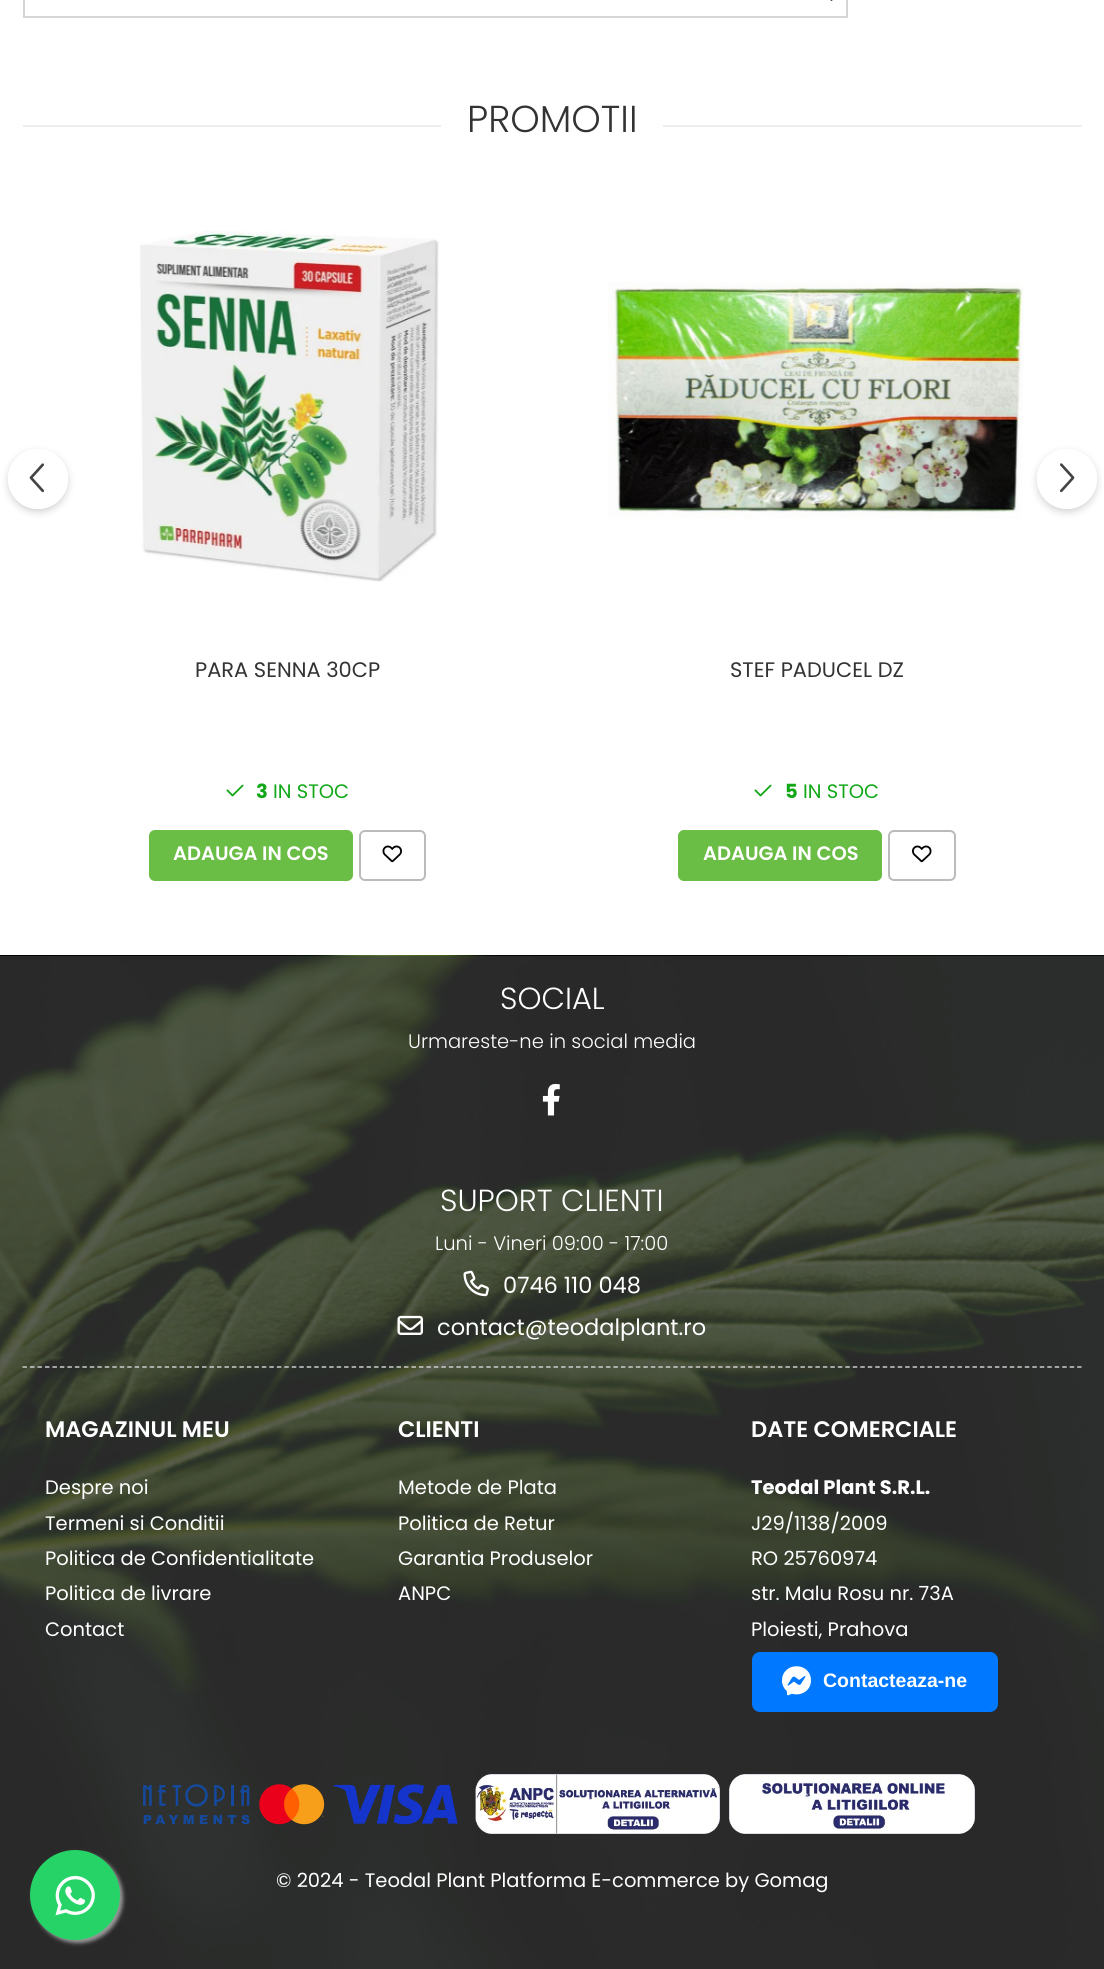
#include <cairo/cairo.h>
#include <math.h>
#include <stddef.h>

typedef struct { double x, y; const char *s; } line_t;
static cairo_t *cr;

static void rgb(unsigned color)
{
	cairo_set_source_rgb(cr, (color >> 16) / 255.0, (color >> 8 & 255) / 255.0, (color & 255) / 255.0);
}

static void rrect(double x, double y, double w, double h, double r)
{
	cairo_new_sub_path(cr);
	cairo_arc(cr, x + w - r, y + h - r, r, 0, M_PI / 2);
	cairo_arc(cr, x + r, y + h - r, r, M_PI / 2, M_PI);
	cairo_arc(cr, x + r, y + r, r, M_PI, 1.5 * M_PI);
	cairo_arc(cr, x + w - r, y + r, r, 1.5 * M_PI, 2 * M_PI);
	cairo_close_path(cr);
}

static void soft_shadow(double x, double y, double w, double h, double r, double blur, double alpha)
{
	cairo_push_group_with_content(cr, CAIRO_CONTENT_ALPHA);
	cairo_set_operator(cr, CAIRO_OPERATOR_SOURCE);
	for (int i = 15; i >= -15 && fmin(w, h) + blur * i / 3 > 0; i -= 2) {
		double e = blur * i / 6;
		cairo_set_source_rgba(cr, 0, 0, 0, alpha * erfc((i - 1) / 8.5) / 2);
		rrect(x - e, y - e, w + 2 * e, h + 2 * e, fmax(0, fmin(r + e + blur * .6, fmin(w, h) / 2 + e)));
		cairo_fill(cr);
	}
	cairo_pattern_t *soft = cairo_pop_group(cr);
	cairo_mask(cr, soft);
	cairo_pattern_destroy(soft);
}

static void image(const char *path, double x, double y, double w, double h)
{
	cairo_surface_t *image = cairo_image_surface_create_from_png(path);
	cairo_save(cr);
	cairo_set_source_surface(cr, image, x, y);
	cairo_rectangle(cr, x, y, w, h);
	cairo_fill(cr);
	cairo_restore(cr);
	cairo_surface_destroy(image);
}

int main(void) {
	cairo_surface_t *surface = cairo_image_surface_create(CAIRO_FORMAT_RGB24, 1104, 1969);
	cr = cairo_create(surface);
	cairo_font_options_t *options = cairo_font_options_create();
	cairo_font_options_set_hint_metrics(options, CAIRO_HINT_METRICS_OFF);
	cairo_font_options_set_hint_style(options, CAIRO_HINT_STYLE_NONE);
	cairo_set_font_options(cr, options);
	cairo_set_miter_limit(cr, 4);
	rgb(0xffffff);
	cairo_paint(cr);
	cairo_rectangle(cr, 24, -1, 823, 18);
	rgb(0xd5d5d5);
	cairo_stroke(cr);
	image("img/1.png", 830, 0, 3, 1);
	rgb(0xeeeeee);
	cairo_rectangle(cr, 23, 125, 1059, 2);
	cairo_fill(cr);
	rgb(0xffffff);
	cairo_rectangle(cr, 441, 125, 222, 2);
	cairo_fill(cr);
	cairo_save(cr);
	cairo_set_fill_rule(cr, CAIRO_FILL_RULE_EVEN_ODD);
	cairo_new_path(cr);
	cairo_move_to(cr, 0, 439);
	cairo_line_to(cr, 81, 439);
	cairo_line_to(cr, 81, 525);
	cairo_line_to(cr, 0, 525);
	cairo_close_path(cr);
	cairo_move_to(cr, 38, 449);
	cairo_curve_to(cr, 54.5, 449, 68, 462.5, 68, 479);
	cairo_curve_to(cr, 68, 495.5, 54.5, 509, 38, 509);
	cairo_curve_to(cr, 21.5, 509, 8, 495.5, 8, 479);
	cairo_curve_to(cr, 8, 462.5, 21.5, 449, 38, 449);
	cairo_close_path(cr);
	cairo_clip(cr);
	rgb(0x000000);
	soft_shadow(11, 455, 54, 54, 27, 5, 0.3);
	cairo_restore(cr);
	cairo_set_source_rgba(cr, 1, 1, 1, 0.8);
	cairo_arc(cr, 38, 479, 30, 0, 2 * M_PI);
	cairo_fill(cr);
	image("img/2.png", 29, 463, 15, 30);
	cairo_save(cr);
	cairo_set_fill_rule(cr, CAIRO_FILL_RULE_EVEN_ODD);
	cairo_new_path(cr);
	cairo_move_to(cr, 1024, 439);
	cairo_line_to(cr, 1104, 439);
	cairo_line_to(cr, 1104, 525);
	cairo_line_to(cr, 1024, 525);
	cairo_close_path(cr);
	cairo_move_to(cr, 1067, 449);
	cairo_curve_to(cr, 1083.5, 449, 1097, 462.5, 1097, 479);
	cairo_curve_to(cr, 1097, 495.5, 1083.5, 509, 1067, 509);
	cairo_curve_to(cr, 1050.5, 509, 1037, 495.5, 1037, 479);
	cairo_curve_to(cr, 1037, 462.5, 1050.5, 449, 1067, 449);
	cairo_close_path(cr);
	cairo_clip(cr);
	rgb(0x000000);
	soft_shadow(1040, 455, 54, 54, 27, 5, 0.3);
	cairo_restore(cr);
	cairo_arc(cr, 1067, 479, 30, 0, 2 * M_PI);
	cairo_fill(cr);
	image("img/3.png", 1060, 463, 15, 30);
	image("img/4.png", 140, 230, 299, 352);
	image("img/5.png", 226, 784, 18, 13);
	rgb(0x6abd45);
	rrect(150, 831, 202, 49, 5);
	cairo_fill_preserve(cr);
	cairo_stroke(cr);
	rrect(360, 831, 65, 49, 5);
	rgb(0xbbbbbb);
	cairo_stroke(cr);
	image("img/6.png", 382, 845, 20, 18);
	image("img/7.png", 608, 282, 415, 237);
	image("img/5.png", 754, 784, 18, 13);
	rgb(0x6abd45);
	rrect(679, 831, 202, 49, 5);
	cairo_fill_preserve(cr);
	cairo_stroke(cr);
	rrect(889, 831, 66, 49, 5);
	rgb(0xbbbbbb);
	cairo_stroke(cr);
	image("img/8.png", 912, 845, 20, 18);
	image("img/9.png", 0, 955, 1104, 1014);
	cairo_set_source_rgba(cr, 0.243, 0.243, 0.243, 0.65);
	cairo_rectangle(cr, 0, 956, 1104, 412);
	cairo_fill(cr);
	cairo_new_path(cr);
	cairo_move_to(cr, 22.5, 1367);
	cairo_line_to(cr, 1081.5, 1367);
	rgb(0xcccccc);
	cairo_set_line_width(cr, 1.5);
	cairo_set_dash(cr, (double[]){4.5, 2.98}, 2, 0);
	cairo_stroke(cr);
	image("img/10.png", 542, 1083, 18, 33);
	image("img/11.png", 463, 1270, 26, 27);
	image("img/12.png", 397, 1315, 26, 20);
	cairo_set_source_rgba(cr, 0.243, 0.243, 0.243, 0.65);
	cairo_rectangle(cr, 0, 1368, 1104, 601);
	cairo_fill(cr);
	rgb(0x0078ff);
	rrect(752, 1652, 246, 60, 8);
	cairo_fill(cr);
	image("img/13.png", 782, 1666, 29, 30);
	image("img/14.png", 143, 1784, 315, 41);
	image("img/15.png", 475, 1774, 245, 60);
	image("img/16.png", 729, 1774, 246, 60);
	rgb(0x999999);
	soft_shadow(33, 1853, 90, 90, 45, 2, 1);
	rgb(0x25d366);
	cairo_arc(cr, 75, 1895, 45, 0, 2 * M_PI);
	cairo_fill(cr);
	image("img/17.png", 55, 1875, 40, 41);
	cairo_select_font_face(cr, "Poppins Light", CAIRO_FONT_SLANT_NORMAL, CAIRO_FONT_WEIGHT_NORMAL);
	cairo_set_font_size(cr, 37.5);
	rgb(0x333333);
	cairo_move_to(cr, 467, 132);
	cairo_show_text(cr, "PROMOTII");
	cairo_select_font_face(cr, "Poppins", CAIRO_FONT_SLANT_NORMAL, CAIRO_FONT_WEIGHT_NORMAL);
	cairo_set_font_size(cr, 21);
	cairo_move_to(cr, 195, 677);
	cairo_show_text(cr, "PARA SENNA 30CP");
	cairo_select_font_face(cr, "Poppins", CAIRO_FONT_SLANT_NORMAL, CAIRO_FONT_WEIGHT_BOLD);
	cairo_set_font_size(cr, 19.5);
	rgb(0x11a717);
	cairo_move_to(cr, 256, 798);
	cairo_show_text(cr, "3");
	cairo_select_font_face(cr, "Poppins", CAIRO_FONT_SLANT_NORMAL, CAIRO_FONT_WEIGHT_NORMAL);
	cairo_move_to(cr, 273, 798);
	cairo_show_text(cr, "IN STOC");
	cairo_select_font_face(cr, "Poppins SemiBold", CAIRO_FONT_SLANT_NORMAL, CAIRO_FONT_WEIGHT_NORMAL);
	rgb(0xffffff);
	cairo_move_to(cr, 173, 860);
	cairo_show_text(cr, "ADAUGA IN COS");
	cairo_select_font_face(cr, "Poppins", CAIRO_FONT_SLANT_NORMAL, CAIRO_FONT_WEIGHT_NORMAL);
	cairo_set_font_size(cr, 21);
	rgb(0x333333);
	cairo_move_to(cr, 730, 677);
	cairo_show_text(cr, "STEF PADUCEL DZ");
	cairo_select_font_face(cr, "Poppins", CAIRO_FONT_SLANT_NORMAL, CAIRO_FONT_WEIGHT_BOLD);
	cairo_set_font_size(cr, 19.5);
	rgb(0x11a717);
	cairo_move_to(cr, 785, 798);
	cairo_show_text(cr, "5");
	cairo_select_font_face(cr, "Poppins", CAIRO_FONT_SLANT_NORMAL, CAIRO_FONT_WEIGHT_NORMAL);
	cairo_move_to(cr, 803, 798);
	cairo_show_text(cr, "IN STOC");
	cairo_select_font_face(cr, "Poppins SemiBold", CAIRO_FONT_SLANT_NORMAL, CAIRO_FONT_WEIGHT_NORMAL);
	rgb(0xffffff);
	cairo_move_to(cr, 703, 860);
	cairo_show_text(cr, "ADAUGA IN COS");
	cairo_select_font_face(cr, "Poppins Light", CAIRO_FONT_SLANT_NORMAL, CAIRO_FONT_WEIGHT_NORMAL);
	cairo_set_font_size(cr, 30.5);
	cairo_move_to(cr, 500, 1009);
	cairo_show_text(cr, "SOCIAL");
	cairo_set_font_size(cr, 19.5);
	cairo_move_to(cr, 408, 1048);
	cairo_show_text(cr, "Urmareste-ne in social media");
	cairo_set_font_size(cr, 30.5);
	cairo_move_to(cr, 440, 1211);
	cairo_show_text(cr, "SUPORT CLIENTI");
	cairo_set_font_size(cr, 19.5);
	cairo_move_to(cr, 435, 1250);
	cairo_show_text(cr, "Luni - Vineri 09:00 - 17:00");
	cairo_select_font_face(cr, "Poppins", CAIRO_FONT_SLANT_NORMAL, CAIRO_FONT_WEIGHT_NORMAL);
	cairo_set_font_size(cr, 22.5);
	cairo_move_to(cr, 503, 1293);
	cairo_show_text(cr, "0746 110 048");
	cairo_move_to(cr, 437, 1335);
	cairo_show_text(cr, "contact@teodalplant.ro");
	cairo_select_font_face(cr, "Poppins SemiBold", CAIRO_FONT_SLANT_NORMAL, CAIRO_FONT_WEIGHT_NORMAL);
	cairo_move_to(cr, 45, 1437);
	cairo_show_text(cr, "MAGAZINUL MEU");
	cairo_select_font_face(cr, "Poppins", CAIRO_FONT_SLANT_NORMAL, CAIRO_FONT_WEIGHT_NORMAL);
	cairo_set_font_size(cr, 19.5);
	{
		static const line_t items[] = {
			{45, 1494, "Despre noi"},
			{45, 1530, "Termeni si Conditii"},
			{45, 1565, "Politica de Confidentialitate"},
			{45, 1600, "Politica de livrare"},
			{45, 1636, "Contact"},
		};
		for (size_t i = 0; i < sizeof items / sizeof *items; i++) {
			cairo_move_to(cr, items[i].x, items[i].y);
			cairo_show_text(cr, items[i].s);
		}
	}
	cairo_select_font_face(cr, "Poppins SemiBold", CAIRO_FONT_SLANT_NORMAL, CAIRO_FONT_WEIGHT_NORMAL);
	cairo_set_font_size(cr, 22.5);
	cairo_move_to(cr, 398, 1437);
	cairo_show_text(cr, "CLIENTI");
	cairo_select_font_face(cr, "Poppins", CAIRO_FONT_SLANT_NORMAL, CAIRO_FONT_WEIGHT_NORMAL);
	cairo_set_font_size(cr, 19.5);
	{
		static const line_t items[] = {
			{398, 1494, "Metode de Plata"},
			{398, 1530, "Politica de Retur"},
			{398, 1565, "Garantia Produselor"},
			{398, 1600, "ANPC"},
		};
		for (size_t i = 0; i < sizeof items / sizeof *items; i++) {
			cairo_move_to(cr, items[i].x, items[i].y);
			cairo_show_text(cr, items[i].s);
		}
	}
	cairo_select_font_face(cr, "Poppins SemiBold", CAIRO_FONT_SLANT_NORMAL, CAIRO_FONT_WEIGHT_NORMAL);
	cairo_set_font_size(cr, 22.5);
	cairo_move_to(cr, 751, 1437);
	cairo_show_text(cr, "DATE COMERCIALE");
	cairo_select_font_face(cr, "Poppins", CAIRO_FONT_SLANT_NORMAL, CAIRO_FONT_WEIGHT_BOLD);
	cairo_set_font_size(cr, 19.5);
	cairo_move_to(cr, 751, 1494);
	cairo_show_text(cr, "Teodal Plant S.R.L.");
	cairo_select_font_face(cr, "Poppins", CAIRO_FONT_SLANT_NORMAL, CAIRO_FONT_WEIGHT_NORMAL);
	{
		static const line_t items[] = {
			{751, 1530, "J29/1138/2009"},
			{751, 1565, "RO 25760974"},
			{751, 1600, "str. Malu Rosu nr. 73A"},
			{751, 1636, "Ploiesti, Prahova"},
		};
		for (size_t i = 0; i < sizeof items / sizeof *items; i++) {
			cairo_move_to(cr, items[i].x, items[i].y);
			cairo_show_text(cr, items[i].s);
		}
	}
	cairo_select_font_face(cr, "Liberation Sans", CAIRO_FONT_SLANT_NORMAL, CAIRO_FONT_WEIGHT_BOLD);
	cairo_move_to(cr, 823, 1687);
	cairo_show_text(cr, "Contacteaza-ne");
	cairo_select_font_face(cr, "Poppins", CAIRO_FONT_SLANT_NORMAL, CAIRO_FONT_WEIGHT_NORMAL);
	cairo_move_to(cr, 276, 1887);
	cairo_show_text(cr, "© 2024 - Teodal Plant Platforma E-commerce by Gomag");
	cairo_surface_write_to_png(surface, "page.png");
	cairo_font_options_destroy(options);
	cairo_destroy(cr);
	cairo_surface_destroy(surface);
	return 0;
}
